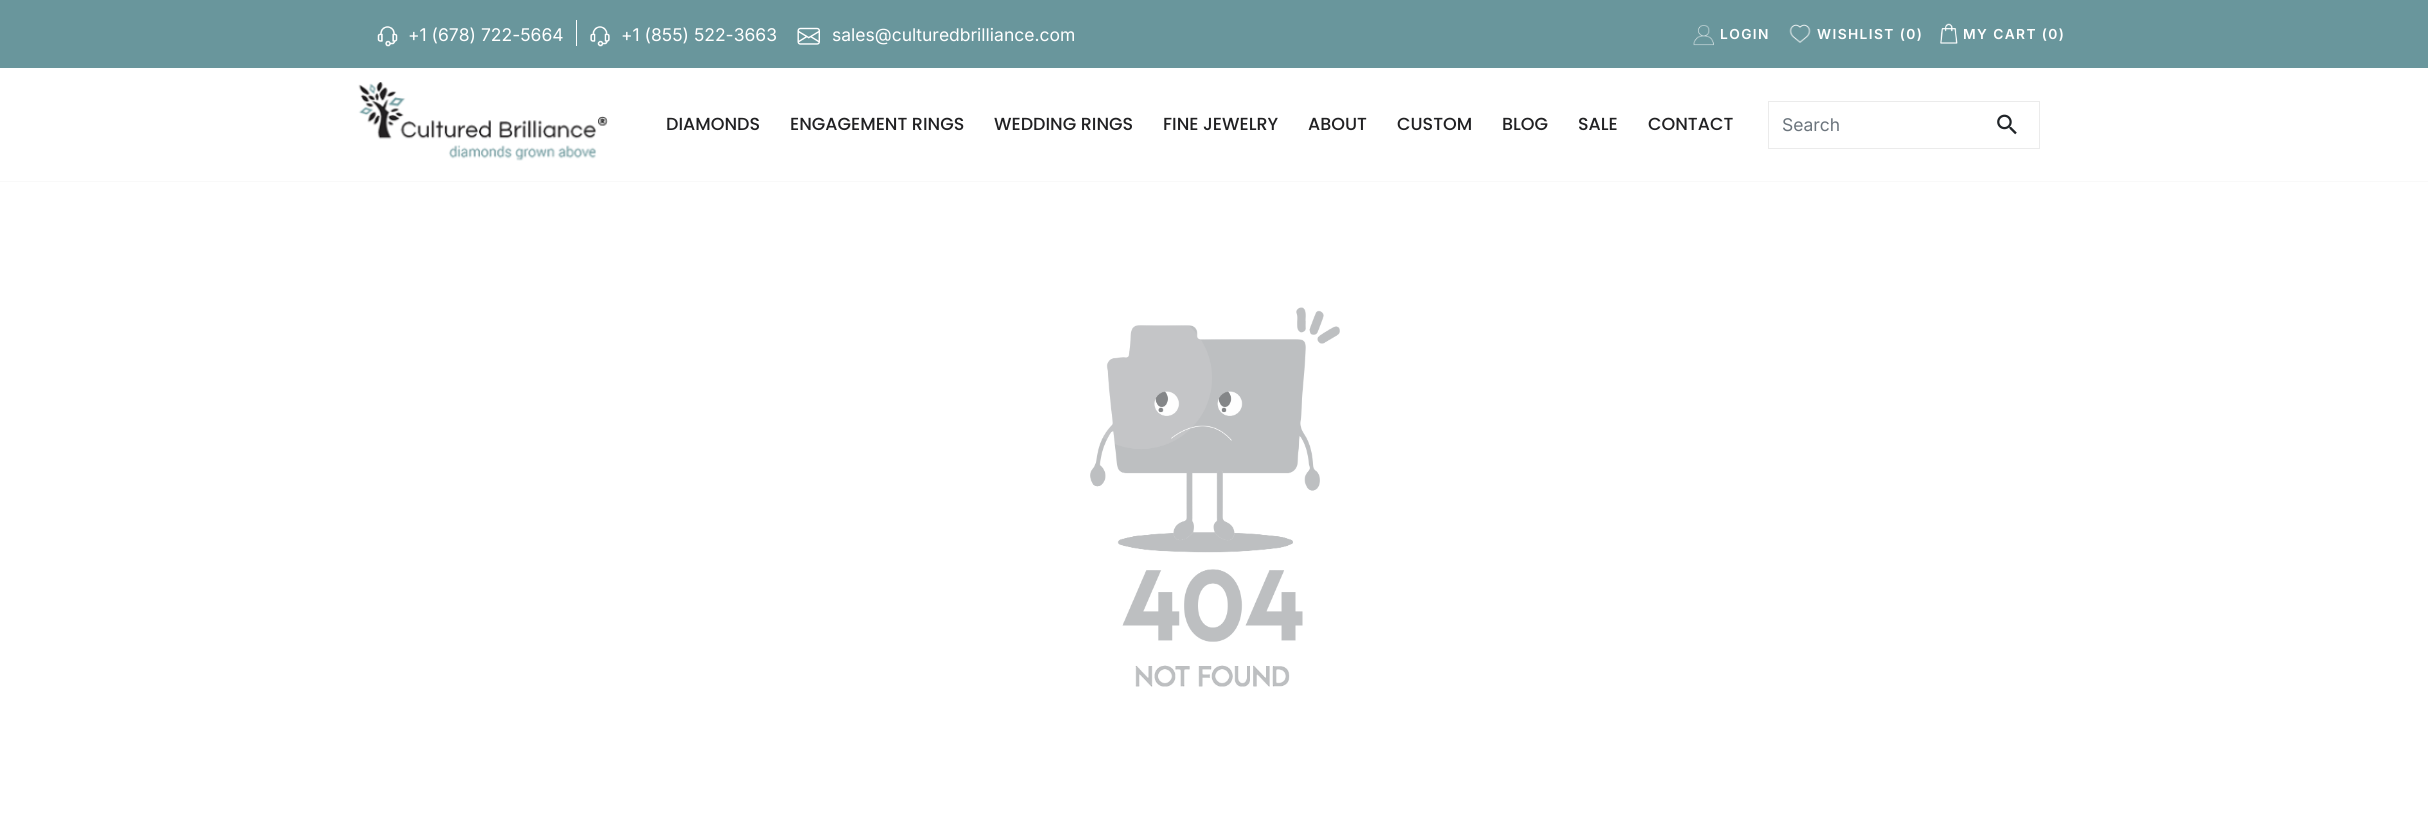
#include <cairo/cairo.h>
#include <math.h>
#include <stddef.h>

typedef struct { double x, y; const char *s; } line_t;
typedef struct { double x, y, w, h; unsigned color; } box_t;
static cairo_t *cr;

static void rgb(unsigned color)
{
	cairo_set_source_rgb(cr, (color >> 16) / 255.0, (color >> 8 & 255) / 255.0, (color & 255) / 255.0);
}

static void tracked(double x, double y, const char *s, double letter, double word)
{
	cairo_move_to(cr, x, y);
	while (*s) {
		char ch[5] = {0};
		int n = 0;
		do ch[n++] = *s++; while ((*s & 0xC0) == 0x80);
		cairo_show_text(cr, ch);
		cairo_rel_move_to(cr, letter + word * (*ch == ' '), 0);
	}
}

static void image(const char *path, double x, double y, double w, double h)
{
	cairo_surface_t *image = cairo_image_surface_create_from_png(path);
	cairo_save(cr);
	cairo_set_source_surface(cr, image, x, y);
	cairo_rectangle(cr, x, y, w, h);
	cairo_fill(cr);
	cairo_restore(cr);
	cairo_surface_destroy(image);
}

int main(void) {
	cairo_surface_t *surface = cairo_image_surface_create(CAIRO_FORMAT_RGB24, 2428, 815);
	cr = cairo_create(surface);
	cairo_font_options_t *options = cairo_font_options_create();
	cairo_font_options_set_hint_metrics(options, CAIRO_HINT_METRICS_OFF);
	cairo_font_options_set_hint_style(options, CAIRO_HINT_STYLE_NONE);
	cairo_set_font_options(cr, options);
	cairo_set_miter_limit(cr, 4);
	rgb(0xffffff);
	cairo_paint(cr);
	{
		static const box_t items[] = {
			{0, 181, 2428, 1, 0xf9f9f9},
			{0, 0, 2428, 68, 0x69969c},
			{576, 20, 1, 26, 0xffffff},
		};
		for (size_t i = 0; i < sizeof items / sizeof *items; i++) {
			rgb(items[i].color);
			cairo_rectangle(cr, items[i].x, items[i].y, items[i].w, items[i].h);
			cairo_fill(cr);
		}
	}
	image("img/1.png", 377, 26, 21, 21);
	image("img/2.png", 590, 26, 20, 21);
	image("img/3.png", 797, 27, 23, 18);
	image("img/4.png", 1693, 25, 21, 21);
	image("img/5.png", 1789, 24, 22, 19);
	image("img/6.png", 1940, 23, 18, 21);
	image("img/7.png", 358, 82, 250, 79);
	cairo_rectangle(cr, 1768.5, 101.5, 271, 47);
	rgb(0xebebeb);
	cairo_set_line_width(cr, 1);
	cairo_stroke(cr);
	image("img/8.png", 1997, 114, 20, 21);
	image("img/9.png", 1090, 307, 250, 380);
	cairo_select_font_face(cr, "Inter", CAIRO_FONT_SLANT_NORMAL, CAIRO_FONT_WEIGHT_NORMAL);
	cairo_set_font_size(cr, 17.5);
	rgb(0xffffff);
	{
		static const line_t items[] = {
			{408, 41, "+1 (678) 722-5664"},
			{621, 41, "+1 (855) 522-3663"},
			{832, 41, "sales@culturedbrilliance.com"},
		};
		for (size_t i = 0; i < sizeof items / sizeof *items; i++) {
			cairo_move_to(cr, items[i].x, items[i].y);
			cairo_show_text(cr, items[i].s);
		}
	}
	cairo_select_font_face(cr, "Inter SemiBold", CAIRO_FONT_SLANT_NORMAL, CAIRO_FONT_WEIGHT_NORMAL);
	cairo_set_font_size(cr, 13.75);
	{
		static const line_t items[] = {
			{1720, 39, "LOGIN"},
			{1817, 39, "WISHLIST (0)"},
			{1963, 39, "MY CART (0)"},
		};
		for (size_t i = 0; i < sizeof items / sizeof *items; i++) {
			tracked(items[i].x, items[i].y, items[i].s, 1.4, 0);
		}
	}
	cairo_select_font_face(cr, "Poppins Medium", CAIRO_FONT_SLANT_NORMAL, CAIRO_FONT_WEIGHT_NORMAL);
	cairo_set_font_size(cr, 17.5);
	rgb(0x212123);
	{
		static const line_t items[] = {
			{666, 130, "DIAMONDS"},
			{790, 130, "ENGAGEMENT RINGS"},
			{994, 130, "WEDDING RINGS"},
			{1163, 130, "FINE JEWELRY"},
			{1308, 130, "ABOUT"},
			{1397, 130, "CUSTOM"},
			{1502, 130, "BLOG"},
			{1578, 130, "SALE"},
			{1648, 130, "CONTACT"},
		};
		for (size_t i = 0; i < sizeof items / sizeof *items; i++) {
			cairo_move_to(cr, items[i].x, items[i].y);
			cairo_show_text(cr, items[i].s);
		}
	}
	cairo_select_font_face(cr, "Inter", CAIRO_FONT_SLANT_NORMAL, CAIRO_FONT_WEIGHT_NORMAL);
	rgb(0x6c757d);
	cairo_move_to(cr, 1782, 131);
	cairo_show_text(cr, "Search");
	cairo_surface_write_to_png(surface, "page.png");
	cairo_font_options_destroy(options);
	cairo_destroy(cr);
	cairo_surface_destroy(surface);
	return 0;
}
